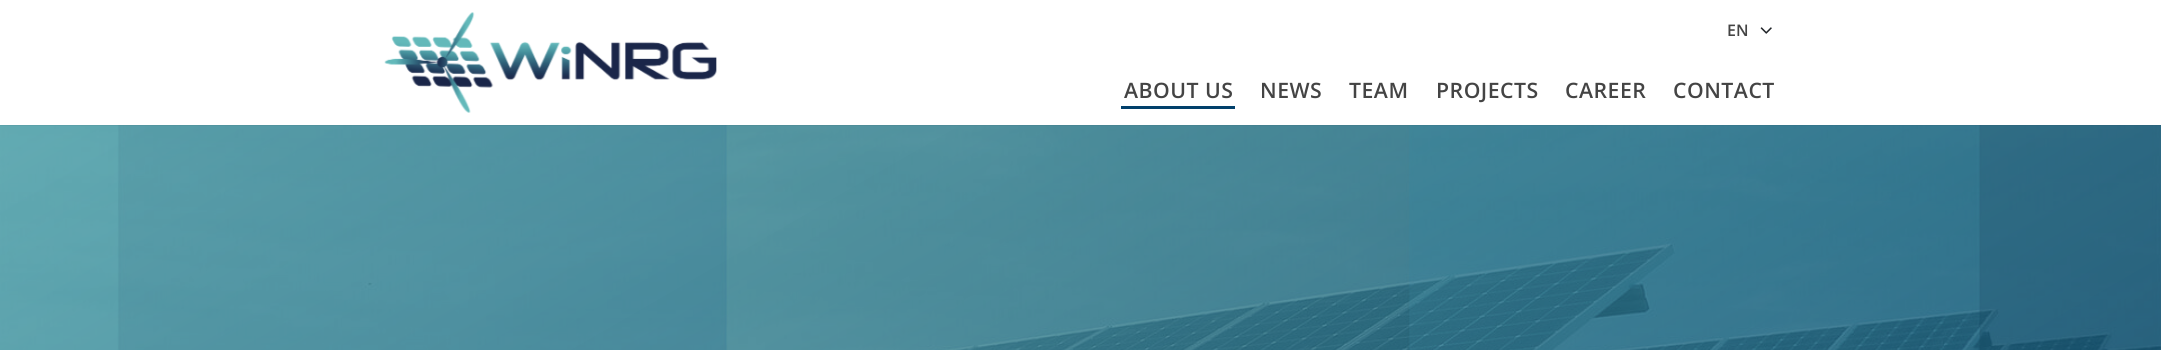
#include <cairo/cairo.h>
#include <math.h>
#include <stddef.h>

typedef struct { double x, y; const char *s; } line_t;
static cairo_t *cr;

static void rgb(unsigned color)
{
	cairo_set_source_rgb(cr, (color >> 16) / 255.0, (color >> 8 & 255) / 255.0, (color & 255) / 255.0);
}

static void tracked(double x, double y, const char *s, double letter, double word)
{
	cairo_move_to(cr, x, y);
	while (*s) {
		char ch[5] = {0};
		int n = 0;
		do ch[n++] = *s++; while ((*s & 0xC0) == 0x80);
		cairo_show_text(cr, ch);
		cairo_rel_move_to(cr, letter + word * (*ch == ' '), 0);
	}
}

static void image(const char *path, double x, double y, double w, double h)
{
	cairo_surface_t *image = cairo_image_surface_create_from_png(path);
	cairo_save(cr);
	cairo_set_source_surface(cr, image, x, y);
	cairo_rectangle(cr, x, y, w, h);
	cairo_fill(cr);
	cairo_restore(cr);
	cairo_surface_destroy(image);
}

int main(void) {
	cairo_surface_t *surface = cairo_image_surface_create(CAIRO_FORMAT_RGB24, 2161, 350);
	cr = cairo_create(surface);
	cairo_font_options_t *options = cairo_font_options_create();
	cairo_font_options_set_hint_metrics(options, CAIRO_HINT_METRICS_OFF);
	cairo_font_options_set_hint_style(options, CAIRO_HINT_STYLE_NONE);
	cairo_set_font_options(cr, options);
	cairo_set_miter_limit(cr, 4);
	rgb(0xffffff);
	cairo_paint(cr);
	image("img/3.png", 0, 125, 2161, 225);
	cairo_set_source_rgba(cr, 0, 0, 0, 0.05);
	cairo_rectangle(cr, 0, 125, 2161, 1);
	cairo_fill(cr);
	image("img/1.png", 384, 12, 333, 101);
	image("img/2.png", 1760, 27, 12, 7);
	rgb(0x01406b);
	cairo_rectangle(cr, 1121, 106, 114, 3);
	cairo_fill(cr);
	cairo_select_font_face(cr, "Open Sans SemiBold", CAIRO_FONT_SLANT_NORMAL, CAIRO_FONT_WEIGHT_NORMAL);
	cairo_set_font_size(cr, 16);
	rgb(0x444444);
	cairo_move_to(cr, 1727, 36);
	cairo_show_text(cr, "EN");
	cairo_set_font_size(cr, 21.25);
	{
		static const line_t items[] = {
			{1124, 98, "ABOUT US"},
			{1260, 98, "NEWS"},
			{1349, 98, "TEAM"},
			{1436, 98, "PROJECTS"},
			{1565, 98, "CAREER"},
			{1673, 98, "CONTACT"},
		};
		for (size_t i = 0; i < sizeof items / sizeof *items; i++) {
			tracked(items[i].x, items[i].y, items[i].s, 0.5, 0);
		}
	}
	cairo_surface_write_to_png(surface, "page.png");
	cairo_font_options_destroy(options);
	cairo_destroy(cr);
	cairo_surface_destroy(surface);
	return 0;
}
